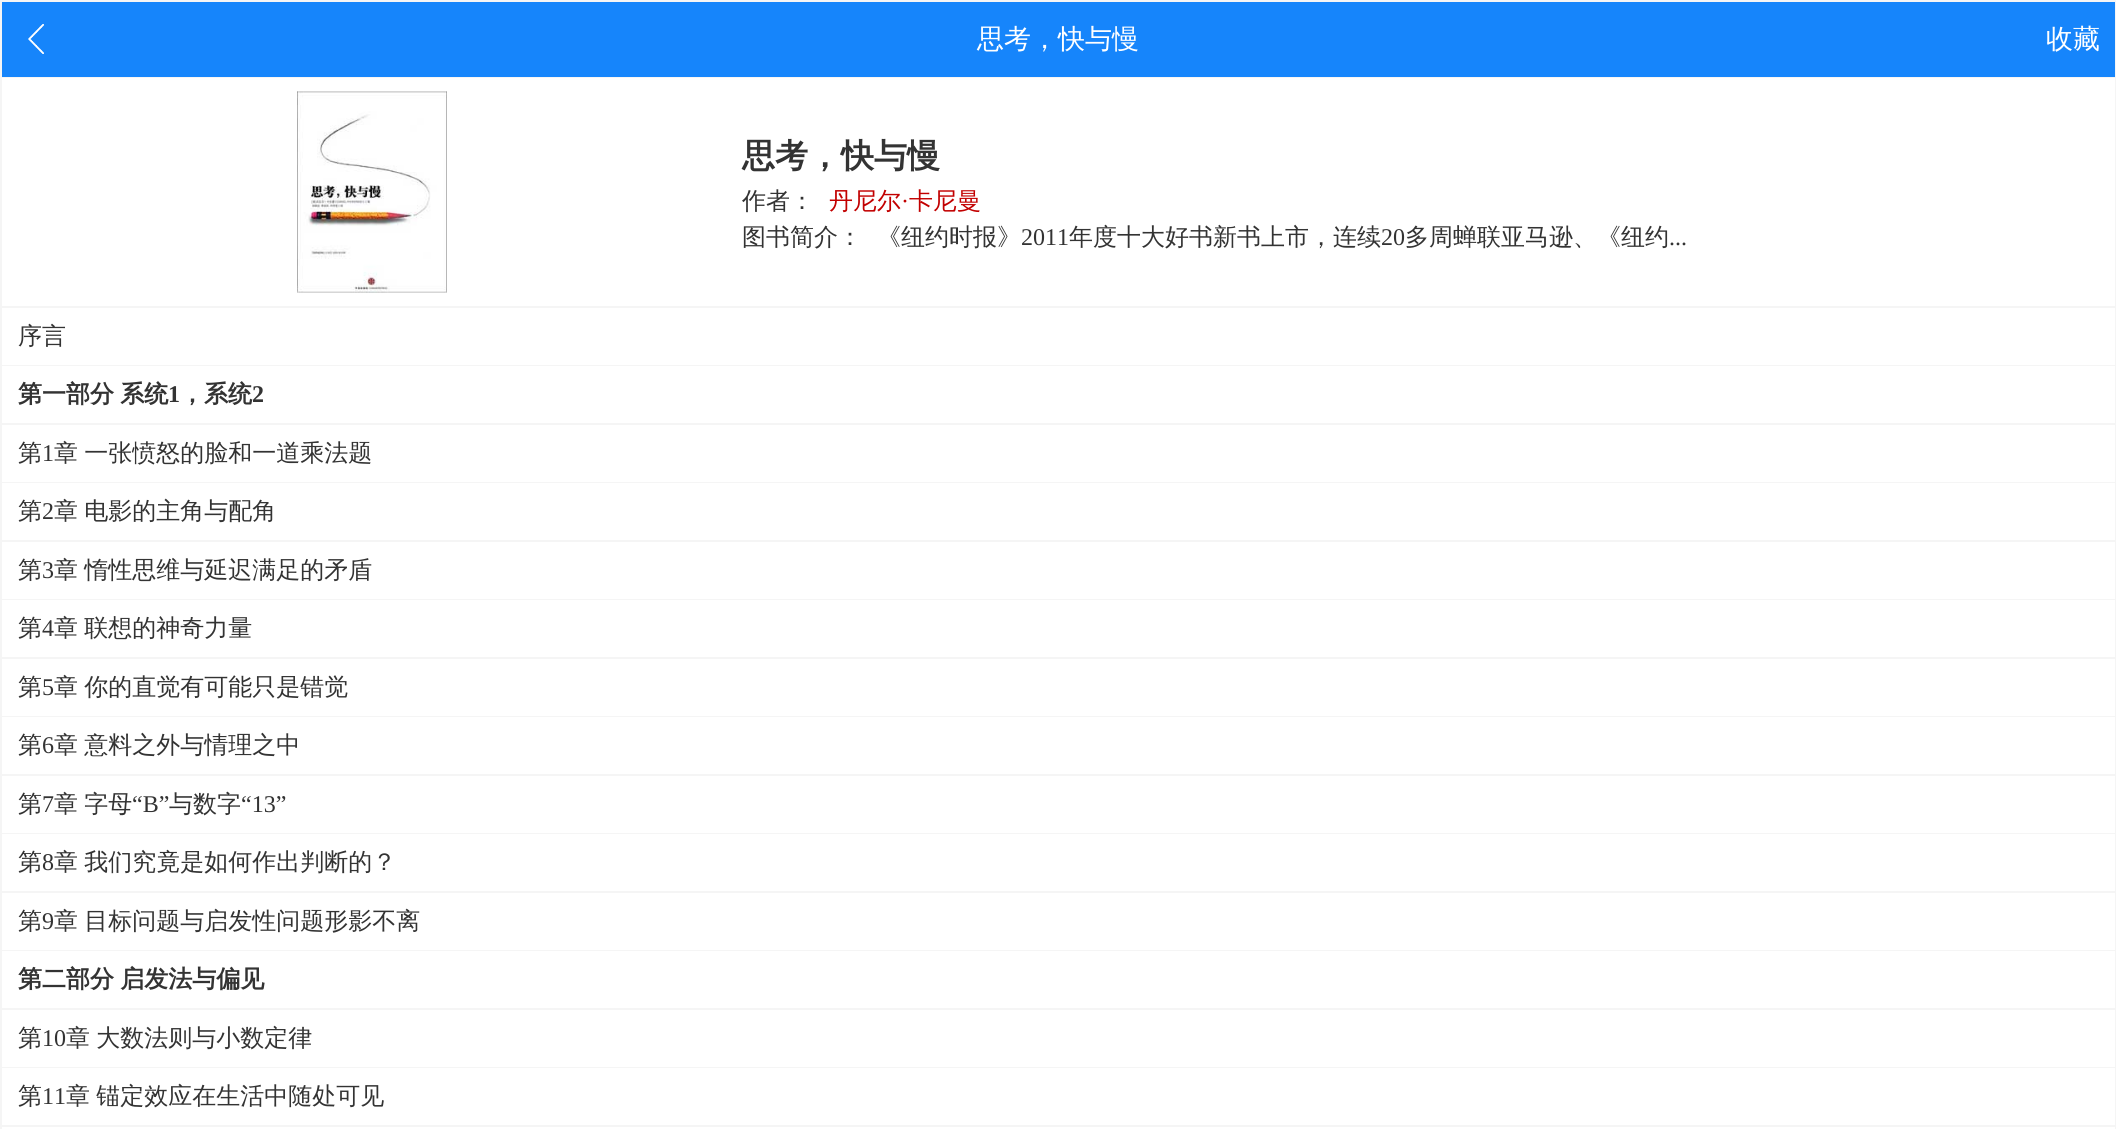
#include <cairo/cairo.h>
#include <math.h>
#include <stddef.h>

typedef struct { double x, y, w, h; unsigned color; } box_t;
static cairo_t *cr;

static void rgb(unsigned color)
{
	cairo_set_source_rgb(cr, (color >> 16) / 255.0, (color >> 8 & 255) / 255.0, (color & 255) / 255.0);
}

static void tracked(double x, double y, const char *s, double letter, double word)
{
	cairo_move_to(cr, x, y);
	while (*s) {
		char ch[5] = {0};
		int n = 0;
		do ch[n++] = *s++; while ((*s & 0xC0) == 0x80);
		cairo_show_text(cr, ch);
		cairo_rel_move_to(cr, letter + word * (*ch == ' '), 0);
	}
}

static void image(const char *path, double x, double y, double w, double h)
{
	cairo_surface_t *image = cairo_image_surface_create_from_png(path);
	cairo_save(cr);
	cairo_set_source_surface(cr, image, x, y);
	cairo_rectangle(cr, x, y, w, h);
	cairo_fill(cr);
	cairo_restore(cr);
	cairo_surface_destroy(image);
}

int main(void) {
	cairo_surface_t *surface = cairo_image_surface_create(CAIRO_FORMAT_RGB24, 2116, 1129);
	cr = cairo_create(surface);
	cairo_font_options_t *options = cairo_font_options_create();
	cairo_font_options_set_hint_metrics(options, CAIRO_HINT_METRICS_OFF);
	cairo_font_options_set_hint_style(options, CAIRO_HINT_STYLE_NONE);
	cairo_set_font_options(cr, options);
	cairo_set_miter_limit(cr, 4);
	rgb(0xf5f5f5);
	cairo_paint(cr);
	rgb(0x1685fb);
	cairo_rectangle(cr, 2, 2, 2113, 75);
	cairo_fill(cr);
	image("img/1.png", 28, 24, 16, 30);
	rgb(0xffffff);
	cairo_rectangle(cr, 2, 78, 2113, 228);
	cairo_fill(cr);
	image("img/2.png", 297, 91, 150, 202);
	{
		static const box_t items[] = {
			{2, 308, 2113, 57, 0xffffff},
			{2, 366, 2113, 57, 0xffffff},
			{2, 425, 2113, 57, 0xffffff},
			{2, 483, 2113, 57, 0xffffff},
			{2, 542, 2113, 57, 0xffffff},
			{2, 600, 2113, 57, 0xffffff},
			{2, 659, 2113, 57, 0xffffff},
			{2, 717, 2113, 57, 0xffffff},
			{2, 776, 2113, 57, 0xffffff},
			{2, 834, 2113, 57, 0xffffff},
			{2, 893, 2113, 57, 0xffffff},
			{2, 951, 2113, 57, 0xffffff},
			{2, 1010, 2113, 57, 0xffffff},
			{2, 1068, 2113, 57, 0xffffff},
			{2, 1127, 2113, 2, 0xffffff},
		};
		for (size_t i = 0; i < sizeof items / sizeof *items; i++) {
			rgb(items[i].color);
			cairo_rectangle(cr, items[i].x, items[i].y, items[i].w, items[i].h);
			cairo_fill(cr);
		}
	}
	cairo_select_font_face(cr, "WenQuanYi Zen Hei Medium", CAIRO_FONT_SLANT_NORMAL, CAIRO_FONT_WEIGHT_NORMAL);
	cairo_set_font_size(cr, 27);
	cairo_move_to(cr, 977, 48);
	cairo_show_text(cr, "思考，快与慢");
	cairo_move_to(cr, 2046, 48);
	cairo_show_text(cr, "收藏");
	cairo_select_font_face(cr, "WenQuanYi Zen Hei", CAIRO_FONT_SLANT_NORMAL, CAIRO_FONT_WEIGHT_BOLD);
	cairo_set_font_size(cr, 33);
	rgb(0x333333);
	cairo_move_to(cr, 742, 167);
	cairo_show_text(cr, "思考，快与慢");
	cairo_select_font_face(cr, "WenQuanYi Zen Hei Medium", CAIRO_FONT_SLANT_NORMAL, CAIRO_FONT_WEIGHT_NORMAL);
	cairo_set_font_size(cr, 24);
	cairo_move_to(cr, 742, 209);
	cairo_show_text(cr, "作者：");
	rgb(0xc20000);
	cairo_move_to(cr, 829, 209);
	cairo_show_text(cr, "丹尼尔");
	cairo_select_font_face(cr, "Liberation Serif", CAIRO_FONT_SLANT_NORMAL, CAIRO_FONT_WEIGHT_NORMAL);
	cairo_move_to(cr, 901, 209);
	cairo_show_text(cr, "·");
	cairo_select_font_face(cr, "WenQuanYi Zen Hei Medium", CAIRO_FONT_SLANT_NORMAL, CAIRO_FONT_WEIGHT_NORMAL);
	cairo_move_to(cr, 909, 209);
	cairo_show_text(cr, "卡尼曼");
	rgb(0x333333);
	cairo_move_to(cr, 742, 245);
	cairo_show_text(cr, "图书简介：");
	cairo_move_to(cr, 877, 245);
	cairo_show_text(cr, "《纽约时报》");
	cairo_select_font_face(cr, "Liberation Serif", CAIRO_FONT_SLANT_NORMAL, CAIRO_FONT_WEIGHT_NORMAL);
	cairo_move_to(cr, 1021, 245);
	cairo_show_text(cr, "2011");
	cairo_select_font_face(cr, "WenQuanYi Zen Hei Medium", CAIRO_FONT_SLANT_NORMAL, CAIRO_FONT_WEIGHT_NORMAL);
	cairo_move_to(cr, 1069, 245);
	cairo_show_text(cr, "年度十大好书新书上市，连续");
	cairo_select_font_face(cr, "Liberation Serif", CAIRO_FONT_SLANT_NORMAL, CAIRO_FONT_WEIGHT_NORMAL);
	cairo_move_to(cr, 1381, 245);
	cairo_show_text(cr, "20");
	cairo_select_font_face(cr, "WenQuanYi Zen Hei Medium", CAIRO_FONT_SLANT_NORMAL, CAIRO_FONT_WEIGHT_NORMAL);
	cairo_move_to(cr, 1405, 245);
	cairo_show_text(cr, "多周蝉联亚马逊、《纽约");
	cairo_select_font_face(cr, "Liberation Serif", CAIRO_FONT_SLANT_NORMAL, CAIRO_FONT_WEIGHT_NORMAL);
	cairo_move_to(cr, 1669, 245);
	cairo_show_text(cr, "...");
	cairo_select_font_face(cr, "WenQuanYi Zen Hei Medium", CAIRO_FONT_SLANT_NORMAL, CAIRO_FONT_WEIGHT_NORMAL);
	cairo_move_to(cr, 18, 344);
	cairo_show_text(cr, "序言");
	cairo_select_font_face(cr, "WenQuanYi Zen Hei", CAIRO_FONT_SLANT_NORMAL, CAIRO_FONT_WEIGHT_BOLD);
	tracked(18, 402, "第一部分 系统", 0, -1);
	cairo_select_font_face(cr, "Liberation Serif", CAIRO_FONT_SLANT_NORMAL, CAIRO_FONT_WEIGHT_BOLD);
	cairo_move_to(cr, 168, 402);
	cairo_show_text(cr, "1");
	cairo_select_font_face(cr, "WenQuanYi Zen Hei", CAIRO_FONT_SLANT_NORMAL, CAIRO_FONT_WEIGHT_BOLD);
	cairo_move_to(cr, 180, 402);
	cairo_show_text(cr, "，系统");
	cairo_select_font_face(cr, "Liberation Serif", CAIRO_FONT_SLANT_NORMAL, CAIRO_FONT_WEIGHT_BOLD);
	cairo_move_to(cr, 252, 402);
	cairo_show_text(cr, "2");
	cairo_select_font_face(cr, "WenQuanYi Zen Hei Medium", CAIRO_FONT_SLANT_NORMAL, CAIRO_FONT_WEIGHT_NORMAL);
	cairo_move_to(cr, 18, 461);
	cairo_show_text(cr, "第");
	cairo_select_font_face(cr, "Liberation Serif", CAIRO_FONT_SLANT_NORMAL, CAIRO_FONT_WEIGHT_NORMAL);
	cairo_move_to(cr, 42, 461);
	cairo_show_text(cr, "1");
	cairo_select_font_face(cr, "WenQuanYi Zen Hei Medium", CAIRO_FONT_SLANT_NORMAL, CAIRO_FONT_WEIGHT_NORMAL);
	tracked(54, 461, "章 一张愤怒的脸和一道乘法题", 0, -1);
	cairo_move_to(cr, 18, 519);
	cairo_show_text(cr, "第");
	cairo_select_font_face(cr, "Liberation Serif", CAIRO_FONT_SLANT_NORMAL, CAIRO_FONT_WEIGHT_NORMAL);
	cairo_move_to(cr, 42, 519);
	cairo_show_text(cr, "2");
	cairo_select_font_face(cr, "WenQuanYi Zen Hei Medium", CAIRO_FONT_SLANT_NORMAL, CAIRO_FONT_WEIGHT_NORMAL);
	tracked(54, 519, "章 电影的主角与配角", 0, -1);
	cairo_move_to(cr, 18, 578);
	cairo_show_text(cr, "第");
	cairo_select_font_face(cr, "Liberation Serif", CAIRO_FONT_SLANT_NORMAL, CAIRO_FONT_WEIGHT_NORMAL);
	cairo_move_to(cr, 42, 578);
	cairo_show_text(cr, "3");
	cairo_select_font_face(cr, "WenQuanYi Zen Hei Medium", CAIRO_FONT_SLANT_NORMAL, CAIRO_FONT_WEIGHT_NORMAL);
	tracked(54, 578, "章 惰性思维与延迟满足的矛盾", 0, -1);
	cairo_move_to(cr, 18, 636);
	cairo_show_text(cr, "第");
	cairo_select_font_face(cr, "Liberation Serif", CAIRO_FONT_SLANT_NORMAL, CAIRO_FONT_WEIGHT_NORMAL);
	cairo_move_to(cr, 42, 636);
	cairo_show_text(cr, "4");
	cairo_select_font_face(cr, "WenQuanYi Zen Hei Medium", CAIRO_FONT_SLANT_NORMAL, CAIRO_FONT_WEIGHT_NORMAL);
	tracked(54, 636, "章 联想的神奇力量", 0, -1);
	cairo_move_to(cr, 18, 695);
	cairo_show_text(cr, "第");
	cairo_select_font_face(cr, "Liberation Serif", CAIRO_FONT_SLANT_NORMAL, CAIRO_FONT_WEIGHT_NORMAL);
	cairo_move_to(cr, 42, 695);
	cairo_show_text(cr, "5");
	cairo_select_font_face(cr, "WenQuanYi Zen Hei Medium", CAIRO_FONT_SLANT_NORMAL, CAIRO_FONT_WEIGHT_NORMAL);
	tracked(54, 695, "章 你的直觉有可能只是错觉", 0, -1);
	cairo_move_to(cr, 18, 753);
	cairo_show_text(cr, "第");
	cairo_select_font_face(cr, "Liberation Serif", CAIRO_FONT_SLANT_NORMAL, CAIRO_FONT_WEIGHT_NORMAL);
	cairo_move_to(cr, 42, 753);
	cairo_show_text(cr, "6");
	cairo_select_font_face(cr, "WenQuanYi Zen Hei Medium", CAIRO_FONT_SLANT_NORMAL, CAIRO_FONT_WEIGHT_NORMAL);
	tracked(54, 753, "章 意料之外与情理之中", 0, -1);
	cairo_move_to(cr, 18, 812);
	cairo_show_text(cr, "第");
	cairo_select_font_face(cr, "Liberation Serif", CAIRO_FONT_SLANT_NORMAL, CAIRO_FONT_WEIGHT_NORMAL);
	cairo_move_to(cr, 42, 812);
	cairo_show_text(cr, "7");
	cairo_select_font_face(cr, "WenQuanYi Zen Hei Medium", CAIRO_FONT_SLANT_NORMAL, CAIRO_FONT_WEIGHT_NORMAL);
	tracked(54, 812, "章 字母", 0, -1);
	cairo_select_font_face(cr, "Liberation Serif", CAIRO_FONT_SLANT_NORMAL, CAIRO_FONT_WEIGHT_NORMAL);
	cairo_move_to(cr, 132, 812);
	cairo_show_text(cr, "“B”");
	cairo_select_font_face(cr, "WenQuanYi Zen Hei Medium", CAIRO_FONT_SLANT_NORMAL, CAIRO_FONT_WEIGHT_NORMAL);
	cairo_move_to(cr, 169, 812);
	cairo_show_text(cr, "与数字");
	cairo_select_font_face(cr, "Liberation Serif", CAIRO_FONT_SLANT_NORMAL, CAIRO_FONT_WEIGHT_NORMAL);
	cairo_move_to(cr, 241, 812);
	cairo_show_text(cr, "“13”");
	cairo_select_font_face(cr, "WenQuanYi Zen Hei Medium", CAIRO_FONT_SLANT_NORMAL, CAIRO_FONT_WEIGHT_NORMAL);
	cairo_move_to(cr, 18, 870);
	cairo_show_text(cr, "第");
	cairo_select_font_face(cr, "Liberation Serif", CAIRO_FONT_SLANT_NORMAL, CAIRO_FONT_WEIGHT_NORMAL);
	cairo_move_to(cr, 42, 870);
	cairo_show_text(cr, "8");
	cairo_select_font_face(cr, "WenQuanYi Zen Hei Medium", CAIRO_FONT_SLANT_NORMAL, CAIRO_FONT_WEIGHT_NORMAL);
	tracked(54, 870, "章 我们究竟是如何作出判断的？", 0, -1);
	cairo_move_to(cr, 18, 929);
	cairo_show_text(cr, "第");
	cairo_select_font_face(cr, "Liberation Serif", CAIRO_FONT_SLANT_NORMAL, CAIRO_FONT_WEIGHT_NORMAL);
	cairo_move_to(cr, 42, 929);
	cairo_show_text(cr, "9");
	cairo_select_font_face(cr, "WenQuanYi Zen Hei Medium", CAIRO_FONT_SLANT_NORMAL, CAIRO_FONT_WEIGHT_NORMAL);
	tracked(54, 929, "章 目标问题与启发性问题形影不离", 0, -1);
	cairo_select_font_face(cr, "WenQuanYi Zen Hei", CAIRO_FONT_SLANT_NORMAL, CAIRO_FONT_WEIGHT_BOLD);
	tracked(18, 987, "第二部分 启发法与偏见", 0, -1);
	cairo_select_font_face(cr, "WenQuanYi Zen Hei Medium", CAIRO_FONT_SLANT_NORMAL, CAIRO_FONT_WEIGHT_NORMAL);
	cairo_move_to(cr, 18, 1046);
	cairo_show_text(cr, "第");
	cairo_select_font_face(cr, "Liberation Serif", CAIRO_FONT_SLANT_NORMAL, CAIRO_FONT_WEIGHT_NORMAL);
	cairo_move_to(cr, 42, 1046);
	cairo_show_text(cr, "10");
	cairo_select_font_face(cr, "WenQuanYi Zen Hei Medium", CAIRO_FONT_SLANT_NORMAL, CAIRO_FONT_WEIGHT_NORMAL);
	tracked(66, 1046, "章 大数法则与小数定律", 0, -1);
	cairo_move_to(cr, 18, 1104);
	cairo_show_text(cr, "第");
	cairo_select_font_face(cr, "Liberation Serif", CAIRO_FONT_SLANT_NORMAL, CAIRO_FONT_WEIGHT_NORMAL);
	cairo_move_to(cr, 42, 1104);
	cairo_show_text(cr, "11");
	cairo_select_font_face(cr, "WenQuanYi Zen Hei Medium", CAIRO_FONT_SLANT_NORMAL, CAIRO_FONT_WEIGHT_NORMAL);
	tracked(66, 1104, "章 锚定效应在生活中随处可见", 0, -1);
	cairo_surface_write_to_png(surface, "page.png");
	cairo_font_options_destroy(options);
	cairo_destroy(cr);
	cairo_surface_destroy(surface);
	return 0;
}
